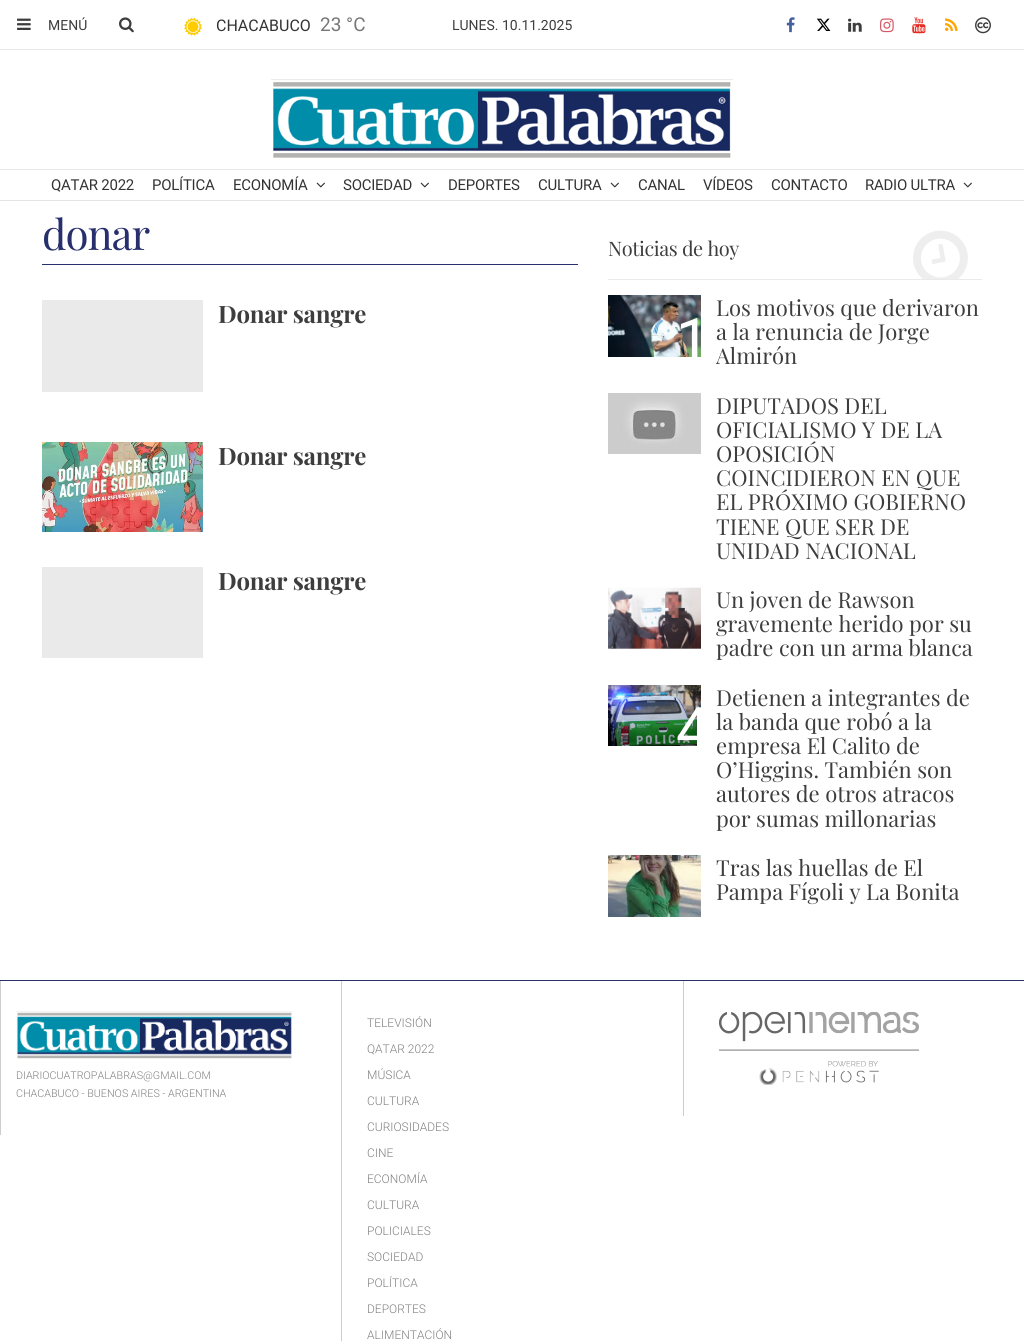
#include <cairo/cairo.h>
#include <math.h>
#include <stddef.h>

typedef struct { double x, y; const char *s; } line_t;
static cairo_t *cr;

static void rgb(unsigned color)
{
	cairo_set_source_rgb(cr, (color >> 16) / 255.0, (color >> 8 & 255) / 255.0, (color & 255) / 255.0);
}

static void tracked(double x, double y, const char *s, double letter, double word)
{
	cairo_move_to(cr, x, y);
	while (*s) {
		char ch[5] = {0};
		int n = 0;
		do ch[n++] = *s++; while ((*s & 0xC0) == 0x80);
		cairo_show_text(cr, ch);
		cairo_rel_move_to(cr, letter + word * (*ch == ' '), 0);
	}
}

static void image(const char *path, double x, double y, double w, double h)
{
	cairo_surface_t *image = cairo_image_surface_create_from_png(path);
	cairo_save(cr);
	cairo_set_source_surface(cr, image, x, y);
	cairo_rectangle(cr, x, y, w, h);
	cairo_fill(cr);
	cairo_restore(cr);
	cairo_surface_destroy(image);
}

int main(void) {
	cairo_surface_t *surface = cairo_image_surface_create(CAIRO_FORMAT_RGB24, 1024, 1341);
	cr = cairo_create(surface);
	cairo_font_options_t *options = cairo_font_options_create();
	cairo_font_options_set_hint_metrics(options, CAIRO_HINT_METRICS_OFF);
	cairo_font_options_set_hint_style(options, CAIRO_HINT_STYLE_NONE);
	cairo_set_font_options(cr, options);
	cairo_set_miter_limit(cr, 4);
	rgb(0xffffff);
	cairo_paint(cr);
	rgb(0xe8e8e8);
	cairo_rectangle(cr, 0, 49, 1024, 1);
	cairo_fill(cr);
	image("img/1.png", 17, 18, 14, 12);
	image("img/2.png", 119, 17, 15, 16);
	image("img/3.png", 184, 17, 18, 19);
	image("img/4.png", 786, 17, 9, 16);
	image("img/5.png", 816, 18, 15, 13);
	image("img/6.png", 848, 18, 14, 14);
	image("img/7.png", 880, 18, 14, 15);
	image("img/8.png", 912, 17, 14, 17);
	image("img/9.png", 945, 18, 13, 13);
	image("img/10.png", 975, 17, 16, 17);
	image("img/11.png", 271, 79, 462, 79);
	rgb(0xe6e6e6);
	cairo_rectangle(cr, 0, 169, 1024, 1);
	cairo_fill(cr);
	rgb(0xe6e5e6);
	cairo_rectangle(cr, 0, 200, 1024, 1);
	cairo_fill(cr);
	image("img/12.png", 316, 182, 9, 6);
	image("img/12.png", 420, 182, 9, 6);
	image("img/12.png", 610, 182, 9, 6);
	image("img/12.png", 963, 182, 9, 6);
	rgb(0x272f6d);
	cairo_rectangle(cr, 42, 264, 536, 1);
	cairo_fill(cr);
	rgb(0xeaeaea);
	cairo_rectangle(cr, 42, 300, 161, 92);
	cairo_fill(cr);
	image("img/13.png", 42, 442, 161, 90);
	cairo_rectangle(cr, 42, 567, 161, 91);
	cairo_fill(cr);
	cairo_rectangle(cr, 608, 279, 374, 1);
	cairo_fill(cr);
	image("img/14.png", 913, 230, 55, 49);
	image("img/15.png", 608, 295, 93, 62);
	image("img/16.png", 608, 393, 93, 61);
	image("img/17.png", 608, 587, 93, 62);
	image("img/18.png", 608, 685, 93, 61);
	image("img/19.png", 608, 855, 93, 62);
	rgb(0x272f6d);
	cairo_rectangle(cr, 0, 980, 1024, 1);
	cairo_fill(cr);
	rgb(0xcecdcd);
	cairo_rectangle(cr, 0, 981, 1, 154);
	cairo_fill(cr);
	image("img/20.png", 16, 1011, 277, 48);
	cairo_rectangle(cr, 341, 981, 1, 360);
	cairo_fill(cr);
	cairo_rectangle(cr, 683, 981, 1, 135);
	cairo_fill(cr);
	image("img/21.png", 719, 1011, 200, 74);
	cairo_select_font_face(cr, "Roboto", CAIRO_FONT_SLANT_NORMAL, CAIRO_FONT_WEIGHT_NORMAL);
	cairo_set_font_size(cr, 14);
	rgb(0x3d3d3d);
	cairo_move_to(cr, 48, 30);
	cairo_show_text(cr, "MENÚ");
	cairo_set_font_size(cr, 16);
	rgb(0x333333);
	cairo_move_to(cr, 216, 31);
	cairo_show_text(cr, "CHACABUCO");
	cairo_set_font_size(cr, 19);
	rgb(0x777777);
	cairo_move_to(cr, 320, 31);
	cairo_show_text(cr, "23 °C");
	cairo_set_font_size(cr, 14);
	rgb(0x3d3d3d);
	cairo_move_to(cr, 452, 30);
	cairo_show_text(cr, "LUNES. 10.11.2025");
	cairo_set_font_size(cr, 15);
	rgb(0x333333);
	{
		static const line_t items[] = {
			{51, 190, "QATAR 2022"},
			{152, 190, "POLÍTICA"},
			{233, 190, "ECONOMÍA"},
			{343, 190, "SOCIEDAD"},
			{448, 190, "DEPORTES"},
			{538, 190, "CULTURA"},
			{638, 190, "CANAL"},
			{703, 190, "VÍDEOS"},
			{771, 190, "CONTACTO"},
			{865, 190, "RADIO ULTRA"},
		};
		for (size_t i = 0; i < sizeof items / sizeof *items; i++) {
			tracked(items[i].x, items[i].y, items[i].s, -0.25, 0);
		}
	}
	cairo_select_font_face(cr, "Playfair Display", CAIRO_FONT_SLANT_NORMAL, CAIRO_FONT_WEIGHT_NORMAL);
	cairo_set_font_size(cr, 42);
	rgb(0x272f6d);
	tracked(42, 250, "donar", -1, 0);
	cairo_select_font_face(cr, "Playfair Display", CAIRO_FONT_SLANT_NORMAL, CAIRO_FONT_WEIGHT_BOLD);
	cairo_set_font_size(cr, 24);
	rgb(0x3d3d3d);
	{
		static const line_t items[] = {
			{218, 323, "Donar sangre"},
			{218, 465, "Donar sangre"},
			{218, 590, "Donar sangre"},
		};
		for (size_t i = 0; i < sizeof items / sizeof *items; i++) {
			tracked(items[i].x, items[i].y, items[i].s, -0.25, 0);
		}
	}
	cairo_select_font_face(cr, "Playfair Display", CAIRO_FONT_SLANT_NORMAL, CAIRO_FONT_WEIGHT_NORMAL);
	cairo_set_font_size(cr, 20);
	tracked(608, 256, "Noticias de hoy", -0.4, 0);
	cairo_save(cr);
	cairo_rectangle(cr, 608, 295, 93, 62);
	cairo_clip(cr);
	cairo_select_font_face(cr, "Roboto", CAIRO_FONT_SLANT_NORMAL, CAIRO_FONT_WEIGHT_NORMAL);
	cairo_set_font_size(cr, 60);
	rgb(0xffffff);
	cairo_move_to(cr, 676, 361);
	cairo_show_text(cr, "1");
	cairo_restore(cr);
	cairo_set_font_size(cr, 22);
	{
		static const line_t items[] = {
			{716, 316, "Los motivos que derivaron"},
			{716, 340, "a la renuncia de Jorge"},
			{716, 364, "Almirón"},
			{716, 414, "DIPUTADOS DEL"},
			{716, 438, "OFICIALISMO Y DE LA"},
			{716, 462, "OPOSICIÓN"},
			{716, 486, "COINCIDIERON EN QUE"},
			{716, 510, "EL PRÓXIMO GOBIERNO"},
			{716, 535, "TIENE QUE SER DE"},
			{716, 559, "UNIDAD NACIONAL"},
			{716, 608, "Un joven de Rawson"},
			{716, 632, "gravemente herido por su"},
			{716, 656, "padre con un arma blanca"},
		};
		for (size_t i = 0; i < sizeof items / sizeof *items; i++) {
			cairo_move_to(cr, items[i].x, items[i].y);
			cairo_show_text(cr, items[i].s);
		}
	}
	cairo_save(cr);
	cairo_rectangle(cr, 608, 685, 93, 61);
	cairo_clip(cr);
	cairo_select_font_face(cr, "Roboto", CAIRO_FONT_SLANT_NORMAL, CAIRO_FONT_WEIGHT_NORMAL);
	cairo_set_font_size(cr, 60);
	rgb(0xffffff);
	cairo_move_to(cr, 676, 750);
	cairo_show_text(cr, "4");
	cairo_restore(cr);
	{
		static const line_t items[] = {
			{716, 706, "Detienen a integrantes de"},
			{716, 730, "la banda que robó a la"},
			{716, 754, "empresa El Calito de"},
			{716, 778, "O’Higgins. También son"},
			{716, 802, "autores de otros atracos"},
			{716, 827, "por sumas millonarias"},
			{716, 876, "Tras las huellas de El"},
			{716, 900, "Pampa Fígoli y La Bonita"},
		};
		for (size_t i = 0; i < sizeof items / sizeof *items; i++) {
			cairo_move_to(cr, items[i].x, items[i].y);
			cairo_show_text(cr, items[i].s);
		}
	}
	cairo_select_font_face(cr, "Roboto Light", CAIRO_FONT_SLANT_NORMAL, CAIRO_FONT_WEIGHT_NORMAL);
	cairo_set_font_size(cr, 10.75);
	rgb(0x808080);
	cairo_move_to(cr, 16, 1079);
	cairo_show_text(cr, "DIARIOCUATROPALABRAS@GMAIL.COM");
	cairo_move_to(cr, 16, 1097);
	cairo_show_text(cr, "CHACABUCO - BUENOS AIRES - ARGENTINA");
	cairo_set_font_size(cr, 12);
	{
		static const line_t items[] = {
			{367, 1027, "TELEVISIÓN"},
			{367, 1053, "QATAR 2022"},
			{367, 1079, "MÚSICA"},
			{367, 1105, "CULTURA"},
			{367, 1131, "CURIOSIDADES"},
			{367, 1157, "CINE"},
			{367, 1183, "ECONOMÍA"},
			{367, 1209, "CULTURA"},
			{367, 1235, "POLICIALES"},
			{367, 1261, "SOCIEDAD"},
			{367, 1287, "POLÍTICA"},
			{367, 1313, "DEPORTES"},
			{367, 1339, "ALIMENTACIÓN"},
		};
		for (size_t i = 0; i < sizeof items / sizeof *items; i++) {
			cairo_move_to(cr, items[i].x, items[i].y);
			cairo_show_text(cr, items[i].s);
		}
	}
	cairo_surface_write_to_png(surface, "page.png");
	cairo_font_options_destroy(options);
	cairo_destroy(cr);
	cairo_surface_destroy(surface);
	return 0;
}
